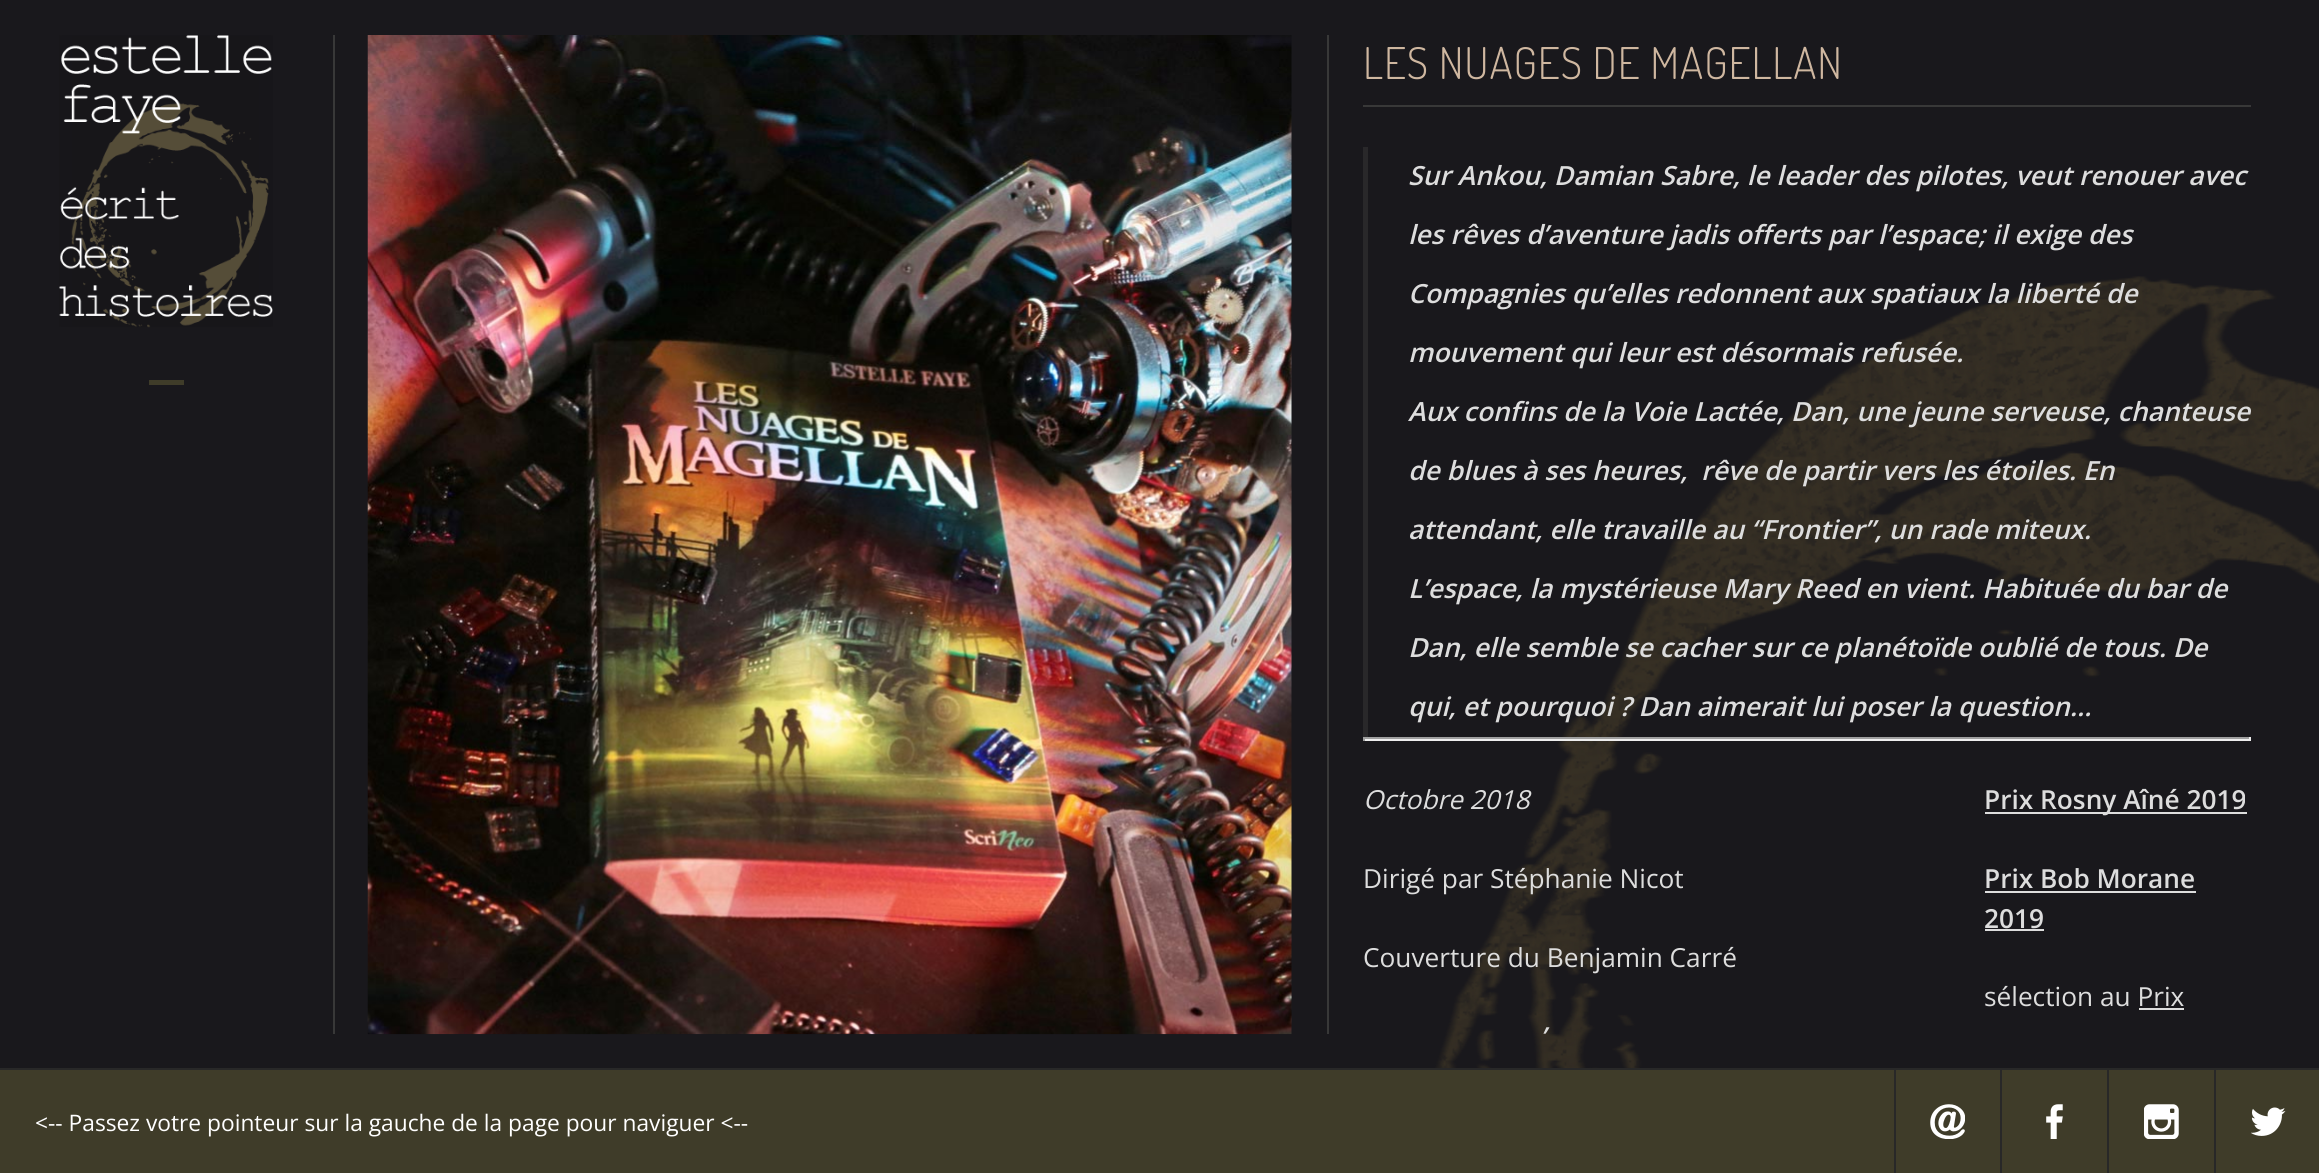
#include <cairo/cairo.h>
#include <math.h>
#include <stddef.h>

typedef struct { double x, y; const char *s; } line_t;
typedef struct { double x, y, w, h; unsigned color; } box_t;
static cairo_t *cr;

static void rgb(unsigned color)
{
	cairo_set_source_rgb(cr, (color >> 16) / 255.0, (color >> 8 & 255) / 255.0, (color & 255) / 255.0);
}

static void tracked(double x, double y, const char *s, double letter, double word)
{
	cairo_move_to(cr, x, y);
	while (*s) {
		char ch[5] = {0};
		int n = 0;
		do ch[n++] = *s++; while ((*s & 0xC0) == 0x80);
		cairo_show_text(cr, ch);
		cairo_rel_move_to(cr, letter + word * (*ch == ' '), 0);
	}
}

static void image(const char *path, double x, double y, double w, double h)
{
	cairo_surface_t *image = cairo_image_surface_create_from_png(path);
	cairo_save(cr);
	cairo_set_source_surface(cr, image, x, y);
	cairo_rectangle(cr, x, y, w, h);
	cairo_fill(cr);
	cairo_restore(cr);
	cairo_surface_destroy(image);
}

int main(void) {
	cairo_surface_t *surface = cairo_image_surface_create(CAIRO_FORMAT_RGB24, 2319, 1173);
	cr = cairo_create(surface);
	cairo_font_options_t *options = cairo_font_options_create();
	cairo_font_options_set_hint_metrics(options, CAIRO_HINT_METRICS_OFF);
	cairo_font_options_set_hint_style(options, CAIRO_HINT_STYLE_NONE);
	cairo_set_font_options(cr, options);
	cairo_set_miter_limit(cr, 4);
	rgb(0x19181c);
	cairo_paint(cr);
	image("img/1.png", 1435, 276, 884, 792);
	rgb(0x383838);
	cairo_rectangle(cr, 333, 35, 2, 999);
	cairo_fill(cr);
	image("img/2.png", 59, 35, 214, 293);
	rgb(0x3f3c29);
	cairo_rectangle(cr, 149, 380, 35, 5);
	cairo_fill(cr);
	image("img/3.png", 367, 35, 925, 1000);
	{
		static const box_t items[] = {
			{1327, 35, 2, 999, 0x383838},
			{1363, 105, 888, 2, 0x383838},
			{1363, 147, 5, 590, 0x29282a},
			{1363, 737, 888, 2, 0x9f9f9f},
			{2249, 737, 2, 4, 0xeeeeee},
			{1363, 739, 888, 2, 0xeeeeee},
			{1363, 737, 2, 4, 0x9f9f9f},
			{1985, 812, 262, 2, 0xdddddd},
			{1985, 891, 211, 2, 0xdddddd},
			{1985, 929, 59, 2, 0xdddddd},
			{2139, 1008, 45, 2, 0xdddddd},
			{0, 1070, 2319, 103, 0x3f3c29},
			{0, 1068, 2319, 2, 0x282828},
			{1894, 1069, 2, 104, 0x282828},
		};
		for (size_t i = 0; i < sizeof items / sizeof *items; i++) {
			rgb(items[i].color);
			cairo_rectangle(cr, items[i].x, items[i].y, items[i].w, items[i].h);
			cairo_fill(cr);
		}
	}
	image("img/4.png", 1930, 1104, 35, 35);
	cairo_rectangle(cr, 2000, 1069, 2, 104);
	cairo_fill(cr);
	image("img/5.png", 2046, 1104, 17, 35);
	cairo_rectangle(cr, 2107, 1069, 2, 104);
	cairo_fill(cr);
	image("img/6.png", 2144, 1104, 35, 35);
	cairo_rectangle(cr, 2214, 1069, 2, 104);
	cairo_fill(cr);
	image("img/7.png", 2251, 1107, 35, 29);
	cairo_select_font_face(cr, "Dosis Light", CAIRO_FONT_SLANT_NORMAL, CAIRO_FONT_WEIGHT_NORMAL);
	cairo_set_font_size(cr, 43.75);
	rgb(0xcfb7a0);
	tracked(1363, 79, "LES NUAGES DE MAGELLAN", 0.9, 0);
	cairo_select_font_face(cr, "Open Sans SemiBold", CAIRO_FONT_SLANT_ITALIC, CAIRO_FONT_WEIGHT_NORMAL);
	cairo_set_font_size(cr, 26.4);
	rgb(0xdddddd);
	{
		static const line_t items[] = {
			{1408, 185, "Sur Ankou, Damian Sabre, le leader des pilotes, veut renouer avec"},
			{1408, 244, "les rêves d’aventure jadis offerts par l’espace; il exige des"},
			{1408, 303, "Compagnies qu’elles redonnent aux spatiaux la liberté de"},
			{1408, 362, "mouvement qui leur est désormais refusée."},
			{1408, 421, "Aux confins de la Voie Lactée, Dan, une jeune serveuse, chanteuse"},
			{1408, 480, "de blues à ses heures,  rêve de partir vers les étoiles. En"},
			{1408, 539, "attendant, elle travaille au “Frontier”, un rade miteux."},
			{1408, 598, "L’espace, la mystérieuse Mary Reed en vient. Habituée du bar de"},
			{1408, 657, "Dan, elle semble se cacher sur ce planétoïde oublié de tous. De"},
			{1408, 716, "qui, et pourquoi ? Dan aimerait lui poser la question…"},
		};
		for (size_t i = 0; i < sizeof items / sizeof *items; i++) {
			cairo_move_to(cr, items[i].x, items[i].y);
			cairo_show_text(cr, items[i].s);
		}
	}
	cairo_select_font_face(cr, "Open Sans", CAIRO_FONT_SLANT_ITALIC, CAIRO_FONT_WEIGHT_NORMAL);
	cairo_set_font_size(cr, 26.25);
	cairo_move_to(cr, 1363, 809);
	cairo_show_text(cr, "Octobre 2018");
	cairo_select_font_face(cr, "Open Sans", CAIRO_FONT_SLANT_NORMAL, CAIRO_FONT_WEIGHT_NORMAL);
	cairo_move_to(cr, 1363, 888);
	cairo_show_text(cr, "Dirigé par Stéphanie Nicot");
	cairo_move_to(cr, 1363, 967);
	cairo_show_text(cr, "Couverture du Benjamin Carré");
	cairo_select_font_face(cr, "Open Sans SemiBold", CAIRO_FONT_SLANT_ITALIC, CAIRO_FONT_WEIGHT_NORMAL);
	cairo_move_to(cr, 1540, 1046);
	cairo_show_text(cr, "’");
	cairo_select_font_face(cr, "Open Sans SemiBold", CAIRO_FONT_SLANT_NORMAL, CAIRO_FONT_WEIGHT_NORMAL);
	{
		static const line_t items[] = {
			{1984, 809, "Prix Rosny Aîné 2019"},
			{1984, 888, "Prix Bob Morane"},
			{1984, 928, "2019"},
		};
		for (size_t i = 0; i < sizeof items / sizeof *items; i++) {
			cairo_move_to(cr, items[i].x, items[i].y);
			cairo_show_text(cr, items[i].s);
		}
	}
	cairo_select_font_face(cr, "Open Sans", CAIRO_FONT_SLANT_NORMAL, CAIRO_FONT_WEIGHT_NORMAL);
	cairo_move_to(cr, 1984, 1006);
	cairo_show_text(cr, "sélection au Prix");
	cairo_set_font_size(cr, 22.75);
	rgb(0xffffff);
	cairo_move_to(cr, 35, 1131);
	cairo_show_text(cr, "<-- Passez votre pointeur sur la gauche de la page pour naviguer <--");
	cairo_surface_write_to_png(surface, "page.png");
	cairo_font_options_destroy(options);
	cairo_destroy(cr);
	cairo_surface_destroy(surface);
	return 0;
}
